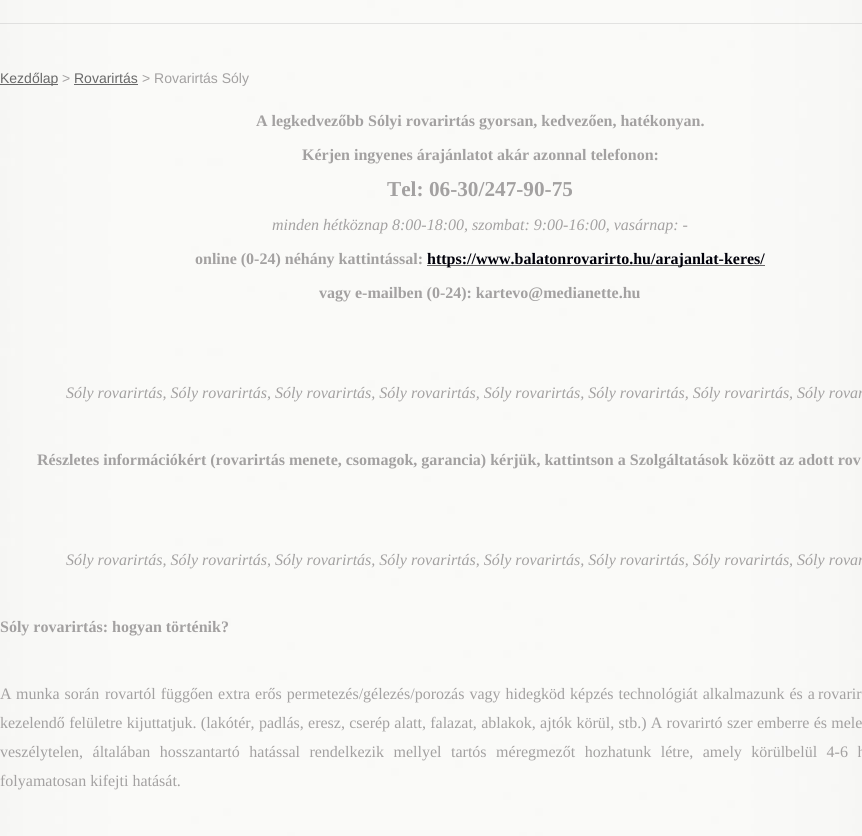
#include <cairo/cairo.h>
#include <math.h>
#include <stddef.h>

static cairo_t *cr;

static void rgb(unsigned color)
{
	cairo_set_source_rgb(cr, (color >> 16) / 255.0, (color >> 8 & 255) / 255.0, (color & 255) / 255.0);
}

static void tracked(double x, double y, const char *s, double letter, double word)
{
	cairo_move_to(cr, x, y);
	while (*s) {
		char ch[5] = {0};
		int n = 0;
		do ch[n++] = *s++; while ((*s & 0xC0) == 0x80);
		cairo_show_text(cr, ch);
		cairo_rel_move_to(cr, letter + word * (*ch == ' '), 0);
	}
}

static void image(const char *path, double x, double y, double w, double h)
{
	cairo_surface_t *image = cairo_image_surface_create_from_png(path);
	cairo_save(cr);
	cairo_set_source_surface(cr, image, x, y);
	cairo_rectangle(cr, x, y, w, h);
	cairo_fill(cr);
	cairo_restore(cr);
	cairo_surface_destroy(image);
}

int main(void) {
	cairo_surface_t *surface = cairo_image_surface_create(CAIRO_FORMAT_RGB24, 862, 836);
	cr = cairo_create(surface);
	cairo_font_options_t *options = cairo_font_options_create();
	cairo_font_options_set_hint_metrics(options, CAIRO_HINT_METRICS_OFF);
	cairo_font_options_set_hint_style(options, CAIRO_HINT_STYLE_NONE);
	cairo_set_font_options(cr, options);
	cairo_set_miter_limit(cr, 4);
	rgb(0xffffff);
	cairo_paint(cr);
	image("img/1.png", 0, 0, 862, 836);
	cairo_set_source_rgba(cr, 0.62, 0.62, 0.62, 0.26);
	cairo_rectangle(cr, 0, 23, 862, 1);
	cairo_fill(cr);
	rgb(0x686868);
	cairo_rectangle(cr, 0, 84, 58, 1);
	cairo_fill(cr);
	cairo_rectangle(cr, 74, 84, 64, 1);
	cairo_fill(cr);
	cairo_rectangle(cr, 427, 265, 338, 1);
	cairo_fill(cr);
	cairo_select_font_face(cr, "Liberation Sans", CAIRO_FONT_SLANT_NORMAL, CAIRO_FONT_WEIGHT_NORMAL);
	cairo_set_font_size(cr, 14);
	cairo_move_to(cr, 0, 83);
	cairo_show_text(cr, "Kezdőlap");
	rgb(0xa3a1a1);
	cairo_move_to(cr, 62, 83);
	cairo_show_text(cr, ">");
	rgb(0x686868);
	cairo_move_to(cr, 74, 83);
	cairo_show_text(cr, "Rovarirtás");
	rgb(0xa3a1a1);
	cairo_move_to(cr, 142, 83);
	cairo_show_text(cr, "> Rovarirtás Sóly");
	cairo_select_font_face(cr, "Liberation Serif", CAIRO_FONT_SLANT_NORMAL, CAIRO_FONT_WEIGHT_BOLD);
	cairo_set_font_size(cr, 16);
	cairo_move_to(cr, 256, 126);
	cairo_show_text(cr, "A legkedvezőbb Sólyi rovarirtás gyorsan, kedvezően, hatékonyan.");
	cairo_move_to(cr, 302, 160);
	cairo_show_text(cr, "Kérjen ingyenes árajánlatot akár azonnal telefonon:");
	cairo_set_font_size(cr, 21.25);
	cairo_move_to(cr, 387, 196);
	cairo_show_text(cr, "Tel: 06-30/247-90-75");
	cairo_select_font_face(cr, "Liberation Serif", CAIRO_FONT_SLANT_ITALIC, CAIRO_FONT_WEIGHT_NORMAL);
	cairo_set_font_size(cr, 16);
	cairo_move_to(cr, 272, 230);
	cairo_show_text(cr, "minden hétköznap 8:00-18:00, szombat: 9:00-16:00, vasárnap: -");
	cairo_select_font_face(cr, "Liberation Serif", CAIRO_FONT_SLANT_NORMAL, CAIRO_FONT_WEIGHT_BOLD);
	cairo_move_to(cr, 195, 264);
	cairo_show_text(cr, "online (0-24) néhány kattintással:");
	rgb(0x00000a);
	cairo_move_to(cr, 427, 264);
	cairo_show_text(cr, "https://www.balatonrovarirto.hu/arajanlat-keres/");
	rgb(0xa3a1a1);
	cairo_move_to(cr, 319, 298);
	cairo_show_text(cr, "vagy e-mailben (0-24): kartevo@medianette.hu");
	cairo_select_font_face(cr, "Liberation Serif", CAIRO_FONT_SLANT_ITALIC, CAIRO_FONT_WEIGHT_NORMAL);
	cairo_move_to(cr, 66, 398);
	cairo_show_text(cr, "Sóly rovarirtás, Sóly rovarirtás, Sóly rovarirtás, Sóly rovarirtás, Sóly rovarirtás, Sóly rovarirtás, Sóly rovarirtás, Sóly rovar");
	cairo_select_font_face(cr, "Liberation Serif", CAIRO_FONT_SLANT_NORMAL, CAIRO_FONT_WEIGHT_BOLD);
	cairo_move_to(cr, 37, 465);
	cairo_show_text(cr, "Részletes információkért (rovarirtás menete, csomagok, garancia) kérjük, kattintson a Szolgáltatások között az adott rov");
	cairo_select_font_face(cr, "Liberation Serif", CAIRO_FONT_SLANT_ITALIC, CAIRO_FONT_WEIGHT_NORMAL);
	cairo_move_to(cr, 66, 565);
	cairo_show_text(cr, "Sóly rovarirtás, Sóly rovarirtás, Sóly rovarirtás, Sóly rovarirtás, Sóly rovarirtás, Sóly rovarirtás, Sóly rovarirtás, Sóly rovar");
	cairo_select_font_face(cr, "Liberation Serif", CAIRO_FONT_SLANT_NORMAL, CAIRO_FONT_WEIGHT_BOLD);
	cairo_move_to(cr, 0, 632);
	cairo_show_text(cr, "Sóly rovarirtás: hogyan történik?");
	cairo_select_font_face(cr, "Liberation Serif", CAIRO_FONT_SLANT_NORMAL, CAIRO_FONT_WEIGHT_NORMAL);
	cairo_move_to(cr, 0, 699);
	cairo_show_text(cr, "A");
	tracked(16, 699, "munka során", 0, 1);
	tracked(105, 699, "rovartól függően extra erős permetezés/gélezés/porozás vagy hidegköd képzés technológiát alkalmazunk és a", 0, 1);
	cairo_move_to(cr, 818, 699);
	cairo_show_text(cr, "rovarir");
	tracked(0, 728, "kezelendő felületre kijuttatjuk. (lakótér, padlás, eresz, cserép alatt, falazat, ablakok, ajtók körül, stb.) A rovarirtó szer emberre és mele", 0, 0.3);
	tracked(0, 757, "veszélytelen, általában hosszantartó hatással rendelkezik mellyel tartós méregmezőt hozhatunk létre, amely körülbelül 4-6 h", 0, 5.5);
	cairo_move_to(cr, 0, 786);
	cairo_show_text(cr, "folyamatosan kifejti hatását.");
	cairo_surface_write_to_png(surface, "page.png");
	cairo_font_options_destroy(options);
	cairo_destroy(cr);
	cairo_surface_destroy(surface);
	return 0;
}
